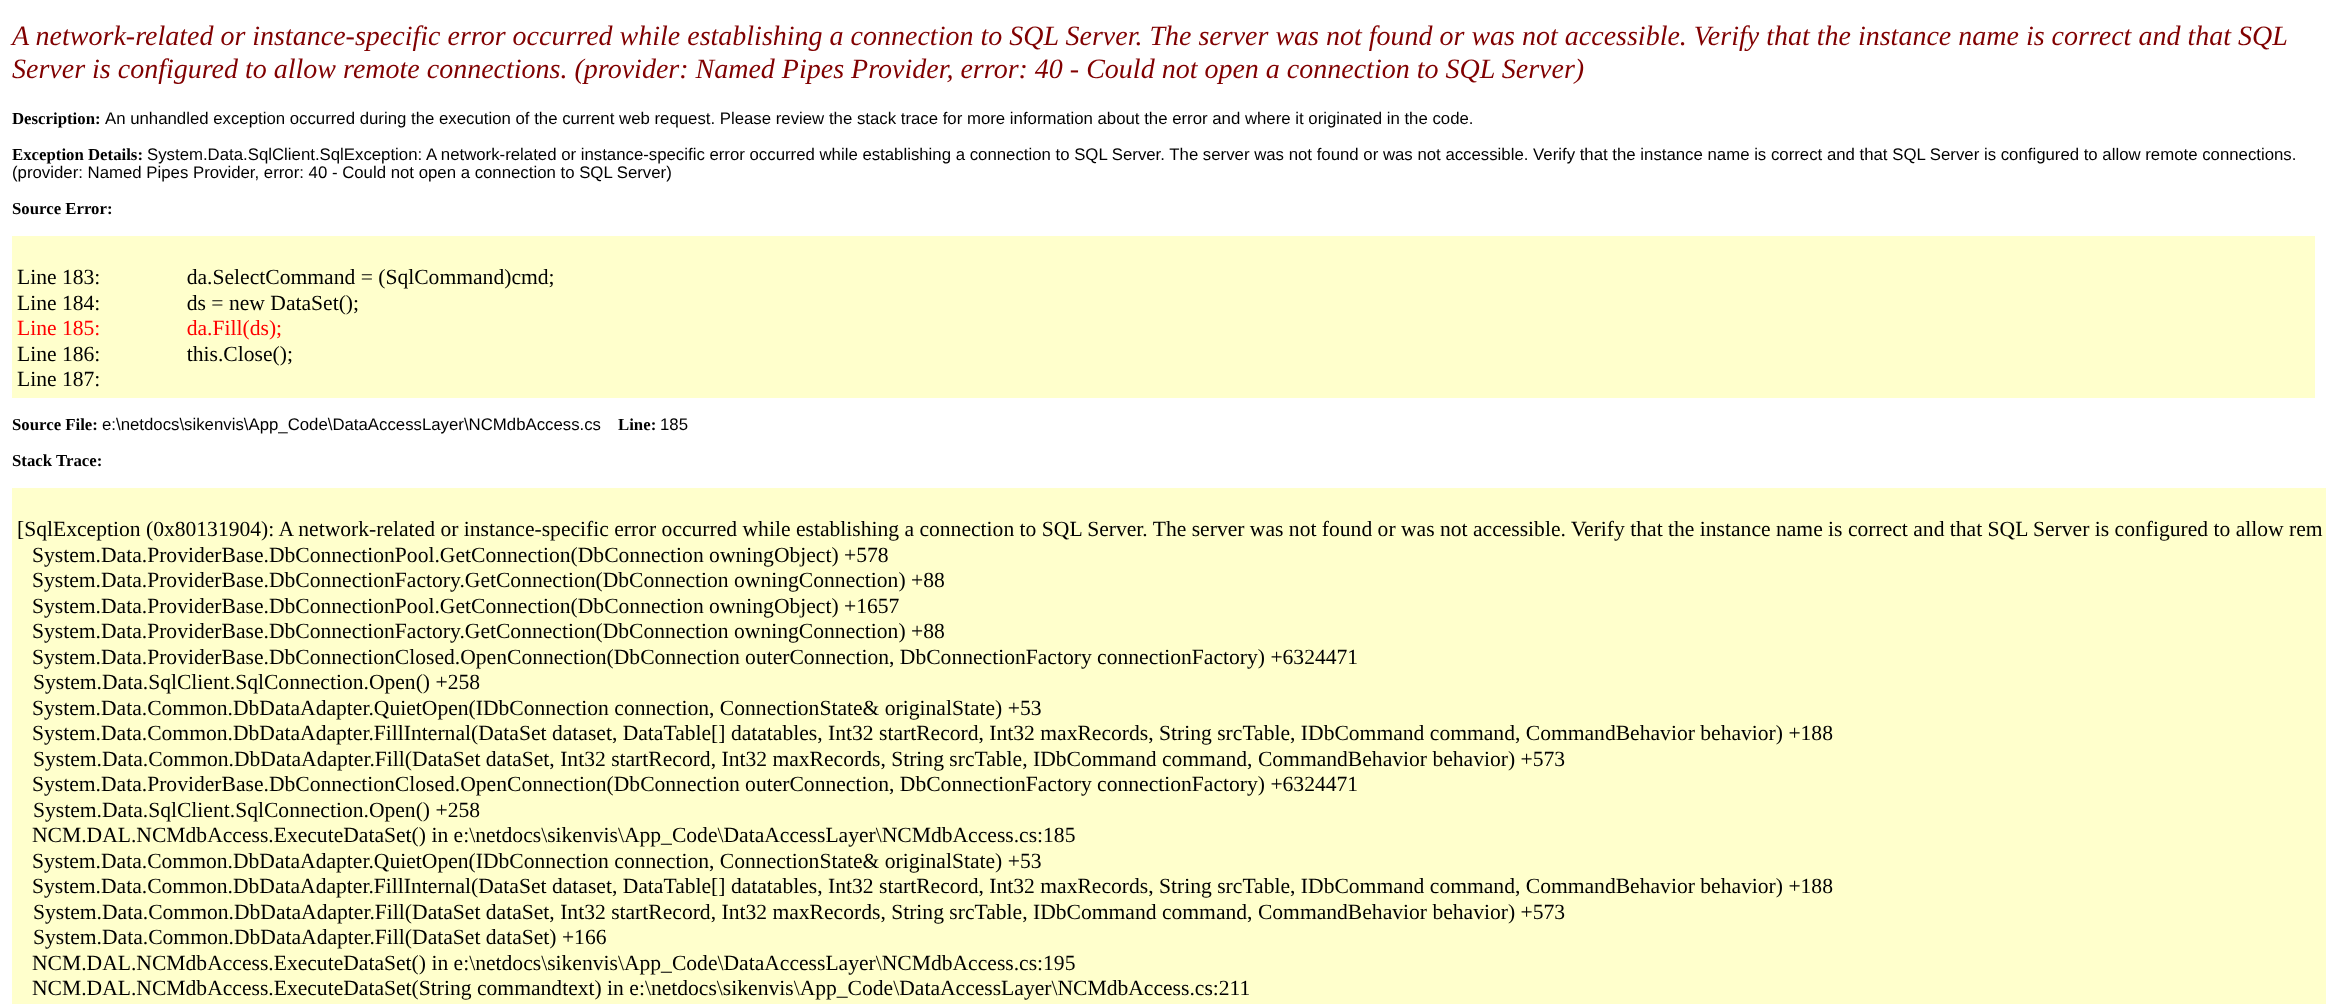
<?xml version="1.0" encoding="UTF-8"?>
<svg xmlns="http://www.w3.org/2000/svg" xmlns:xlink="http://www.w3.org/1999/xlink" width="2326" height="1004">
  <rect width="100%" height="100%" fill="#ffffff" />
  <rect x="12" y="236" width="2303" height="162" fill="#ffffcc" />
  <rect x="12" y="488" width="2314" height="516" fill="#ffffcc" />
  <text x="12" y="45" style="font-family: Liberation Serif; font-size: 28px; font-style: italic; fill: #800000">A network-related or instance-specific error occurred while establishing a connection to SQL Server. The server was not found or was not accessible. Verify that the instance name is correct and that SQL</text>
  <text x="12" y="78" style="font-family: Liberation Serif; font-size: 28px; font-style: italic; fill: #800000">Server is configured to allow remote connections. (provider: Named Pipes Provider, error: 40 - Could not open a connection to SQL Server)</text>
  <text x="12" y="124" style="font-family: Liberation Serif; font-size: 16.8px; font-weight: bold; fill: #000000">Description:</text>
  <text x="105" y="124" style="font-family: Liberation Sans; font-size: 16.8px; fill: #000000">An unhandled exception occurred during the execution of the current web request. Please review the stack trace for more information about the error and where it originated in the code.</text>
  <text x="12" y="160" style="font-family: Liberation Serif; font-size: 16.8px; font-weight: bold; fill: #000000">Exception Details:</text>
  <text x="147" y="160" style="font-family: Liberation Sans; font-size: 16.8px; fill: #000000">System.Data.SqlClient.SqlException: A network-related or instance-specific error occurred while establishing a connection to SQL Server. The server was not found or was not accessible. Verify that the instance name is correct and that SQL Server is configured to allow remote connections.</text>
  <text x="12" y="178" style="font-family: Liberation Sans; font-size: 16.8px; fill: #000000">(provider: Named Pipes Provider, error: 40 - Could not open a connection to SQL Server)</text>
  <text x="12" y="214" style="font-family: Liberation Serif; font-size: 16.8px; font-weight: bold; fill: #000000">Source Error:</text>
  <text x="17" y="284" style="font-family: Liberation Serif; font-size: 21.6px; fill: #000000" xml:space="preserve">Line 183:                da.SelectCommand = (SqlCommand)cmd;</text>
  <text x="17" y="310" style="font-family: Liberation Serif; font-size: 21.6px; fill: #000000" xml:space="preserve">Line 184:                ds = new DataSet();</text>
  <text x="17" y="335" style="font-family: Liberation Serif; font-size: 21.6px; fill: #ff0000" xml:space="preserve">Line 185:                da.Fill(ds);</text>
  <text x="17" y="361" style="font-family: Liberation Serif; font-size: 21.6px; fill: #000000" xml:space="preserve">Line 186:                this.Close();</text>
  <text x="17" y="386" style="font-family: Liberation Serif; font-size: 21.6px; fill: #000000">Line 187:</text>
  <text x="12" y="430" style="font-family: Liberation Serif; font-size: 16.8px; font-weight: bold; fill: #000000">Source File:</text>
  <text x="102" y="430" style="font-family: Liberation Sans; font-size: 16.8px; fill: #000000">e:\netdocs\sikenvis\App_Code\DataAccessLayer\NCMdbAccess.cs</text>
  <text x="618" y="430" style="font-family: Liberation Serif; font-size: 16.8px; font-weight: bold; fill: #000000">Line:</text>
  <text x="660" y="430" style="font-family: Liberation Sans; font-size: 16.8px; fill: #000000">185</text>
  <text x="12" y="466" style="font-family: Liberation Serif; font-size: 16.8px; font-weight: bold; fill: #000000">Stack Trace:</text>
  <text x="17" y="536" style="font-family: Liberation Serif; font-size: 21.6px; fill: #000000">[SqlException (0x80131904): A network-related or instance-specific error occurred while establishing a connection to SQL Server. The server was not found or was not accessible. Verify that the instance name is correct and that SQL Server is configured to allow rem</text>
  <text x="32" y="562" style="font-family: Liberation Serif; font-size: 21.6px; fill: #000000">System.Data.ProviderBase.DbConnectionPool.GetConnection(DbConnection owningObject) +578</text>
  <text x="32" y="587" style="font-family: Liberation Serif; font-size: 21.6px; fill: #000000">System.Data.ProviderBase.DbConnectionFactory.GetConnection(DbConnection owningConnection) +88</text>
  <text x="32" y="613" style="font-family: Liberation Serif; font-size: 21.6px; fill: #000000">System.Data.ProviderBase.DbConnectionPool.GetConnection(DbConnection owningObject) +1657</text>
  <text x="32" y="638" style="font-family: Liberation Serif; font-size: 21.6px; fill: #000000">System.Data.ProviderBase.DbConnectionFactory.GetConnection(DbConnection owningConnection) +88</text>
  <text x="32" y="664" style="font-family: Liberation Serif; font-size: 21.6px; fill: #000000">System.Data.ProviderBase.DbConnectionClosed.OpenConnection(DbConnection outerConnection, DbConnectionFactory connectionFactory) +6324471</text>
  <text x="33" y="689" style="font-family: Liberation Serif; font-size: 21.6px; fill: #000000">System.Data.SqlClient.SqlConnection.Open() +258</text>
  <text x="32" y="715" style="font-family: Liberation Serif; font-size: 21.6px; fill: #000000">System.Data.Common.DbDataAdapter.QuietOpen(IDbConnection connection, ConnectionState&amp; originalState) +53</text>
  <text x="32" y="740" style="font-family: Liberation Serif; font-size: 21.6px; fill: #000000">System.Data.Common.DbDataAdapter.FillInternal(DataSet dataset, DataTable[] datatables, Int32 startRecord, Int32 maxRecords, String srcTable, IDbCommand command, CommandBehavior behavior) +188</text>
  <text x="33" y="766" style="font-family: Liberation Serif; font-size: 21.6px; fill: #000000">System.Data.Common.DbDataAdapter.Fill(DataSet dataSet, Int32 startRecord, Int32 maxRecords, String srcTable, IDbCommand command, CommandBehavior behavior) +573</text>
  <text x="32" y="791" style="font-family: Liberation Serif; font-size: 21.6px; fill: #000000">System.Data.ProviderBase.DbConnectionClosed.OpenConnection(DbConnection outerConnection, DbConnectionFactory connectionFactory) +6324471</text>
  <text x="33" y="817" style="font-family: Liberation Serif; font-size: 21.6px; fill: #000000">System.Data.SqlClient.SqlConnection.Open() +258</text>
  <text x="32" y="842" style="font-family: Liberation Serif; font-size: 21.6px; fill: #000000">NCM.DAL.NCMdbAccess.ExecuteDataSet() in e:\netdocs\sikenvis\App_Code\DataAccessLayer\NCMdbAccess.cs:185</text>
  <text x="32" y="868" style="font-family: Liberation Serif; font-size: 21.6px; fill: #000000">System.Data.Common.DbDataAdapter.QuietOpen(IDbConnection connection, ConnectionState&amp; originalState) +53</text>
  <text x="32" y="893" style="font-family: Liberation Serif; font-size: 21.6px; fill: #000000">System.Data.Common.DbDataAdapter.FillInternal(DataSet dataset, DataTable[] datatables, Int32 startRecord, Int32 maxRecords, String srcTable, IDbCommand command, CommandBehavior behavior) +188</text>
  <text x="33" y="919" style="font-family: Liberation Serif; font-size: 21.6px; fill: #000000">System.Data.Common.DbDataAdapter.Fill(DataSet dataSet, Int32 startRecord, Int32 maxRecords, String srcTable, IDbCommand command, CommandBehavior behavior) +573</text>
  <text x="33" y="944" style="font-family: Liberation Serif; font-size: 21.6px; fill: #000000">System.Data.Common.DbDataAdapter.Fill(DataSet dataSet) +166</text>
  <text x="32" y="970" style="font-family: Liberation Serif; font-size: 21.6px; fill: #000000">NCM.DAL.NCMdbAccess.ExecuteDataSet() in e:\netdocs\sikenvis\App_Code\DataAccessLayer\NCMdbAccess.cs:195</text>
  <text x="32" y="995" style="font-family: Liberation Serif; font-size: 21.6px; fill: #000000">NCM.DAL.NCMdbAccess.ExecuteDataSet(String commandtext) in e:\netdocs\sikenvis\App_Code\DataAccessLayer\NCMdbAccess.cs:211</text>
</svg>
